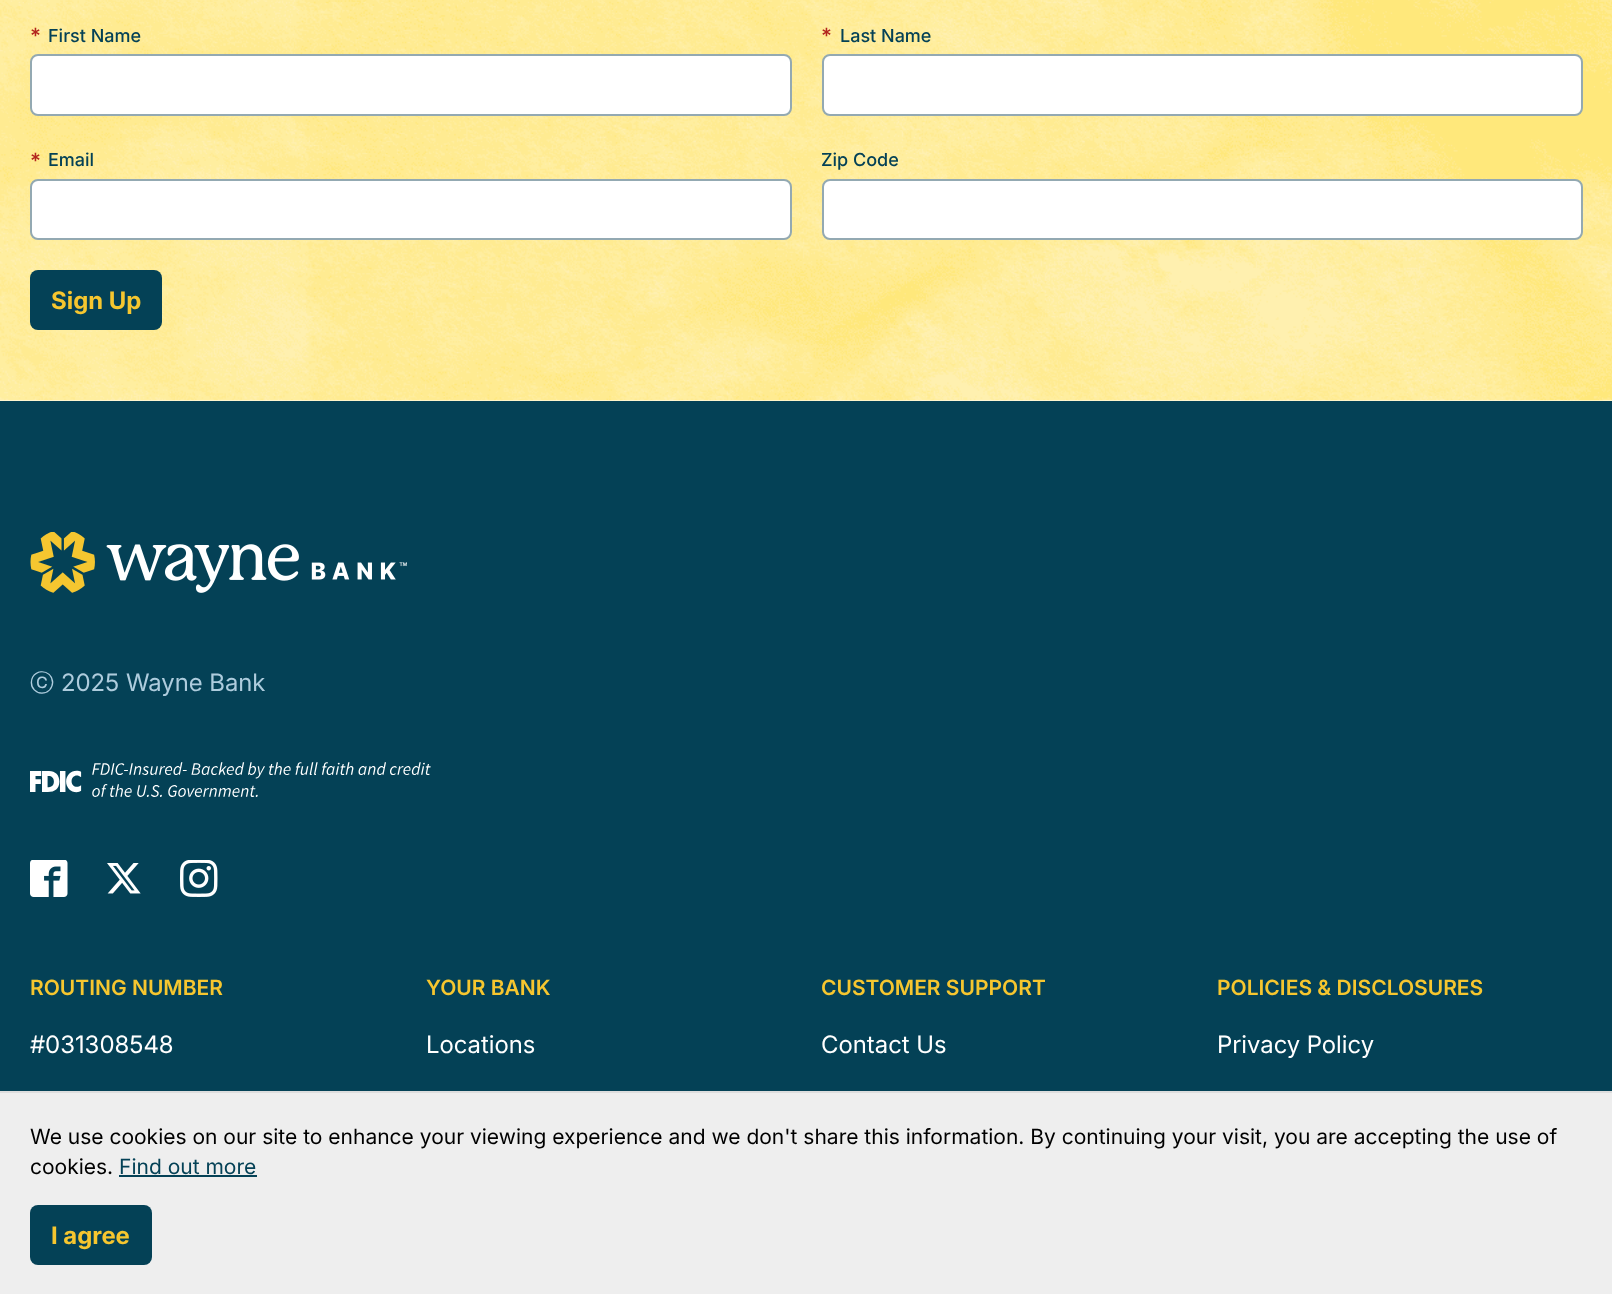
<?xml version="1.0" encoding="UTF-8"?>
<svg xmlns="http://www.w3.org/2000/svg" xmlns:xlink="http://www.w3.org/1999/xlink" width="1612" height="1294">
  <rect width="100%" height="100%" fill="#ffffff" />
  <image x="0" y="0" width="1612" height="401" xlink:href="image1.png" />
  <rect x="31" y="55" width="760" height="60" rx="7" fill="#ffffff" stroke="#93a9b2" stroke-width="2" />
  <rect x="823" y="55" width="759" height="60" rx="7" fill="#ffffff" stroke="#93a9b2" stroke-width="2" />
  <rect x="31" y="180" width="760" height="59" rx="7" fill="#ffffff" stroke="#93a9b2" stroke-width="2" />
  <rect x="823" y="180" width="759" height="59" rx="7" fill="#ffffff" stroke="#93a9b2" stroke-width="2" />
  <rect x="30" y="270" width="132" height="60" rx="8" fill="#044156" />
  <rect y="401" width="1612" height="690" fill="#044156" />
  <image x="30" y="532" width="377" height="61" xlink:href="image2.png" />
  <image x="30" y="762" width="401" height="35" xlink:href="image3.png" />
  <image x="30" y="860" width="38" height="37" xlink:href="image4.png" />
  <image x="107" y="863" width="34" height="31" xlink:href="image5.png" />
  <image x="180" y="860" width="38" height="37" xlink:href="image6.png" />
  <rect y="1093" width="1612" height="201" fill="#eeeeee" />
  <rect y="1091" width="1612" height="2" fill="#dddddd" />
  <rect x="119" y="1175" width="138" height="2" fill="#044156" />
  <rect x="30" y="1205" width="122" height="60" rx="8" fill="#044156" />
  <text x="30" y="43" style="font-family: Inter; font-size: 21px; font-weight: 500; fill: #b3261e">*</text>
  <text x="48" y="42" style="font-family: Inter; font-size: 18px; font-weight: 500; fill: #044156">First Name</text>
  <text x="821" y="43" style="font-family: Inter; font-size: 21px; font-weight: 500; fill: #b3261e">*</text>
  <text x="840" y="42" style="font-family: Inter; font-size: 18px; font-weight: 500; fill: #044156">Last Name</text>
  <text x="30" y="168" style="font-family: Inter; font-size: 21px; font-weight: 500; fill: #b3261e">*</text>
  <text x="48" y="166" style="font-family: Inter; font-size: 18px; font-weight: 500; fill: #044156">Email</text>
  <text x="821" y="166" style="font-family: Inter; font-size: 18px; font-weight: 500; fill: #044156">Zip Code</text>
  <text x="51" y="309" style="font-family: Inter; font-size: 24px; font-weight: bold; fill: #f6c62f">Sign Up</text>
  <text x="30" y="691" style="font-family: WenQuanYi Zen Hei; font-size: 24px; font-weight: 500; fill: #aeccdd">ⓒ</text>
  <text x="61" y="691" style="font-family: Inter; font-size: 24px; fill: #aeccdd">2025 Wayne Bank</text>
  <text x="30" y="995" style="font-family: Inter; font-size: 21px; font-weight: 600; fill: #f6c62f">ROUTING NUMBER</text>
  <text x="30" y="1053" style="font-family: Inter; font-size: 24px; fill: #ffffff">#031308548</text>
  <text x="426" y="995" style="font-family: Inter; font-size: 21px; font-weight: 600; fill: #f6c62f">YOUR BANK</text>
  <text x="426" y="1053" style="font-family: Inter; font-size: 24px; fill: #ffffff">Locations</text>
  <text x="821" y="995" style="font-family: Inter; font-size: 21px; font-weight: 600; fill: #f6c62f">CUSTOMER SUPPORT</text>
  <text x="821" y="1053" style="font-family: Inter; font-size: 24px; fill: #ffffff">Contact Us</text>
  <text x="1217" y="995" style="font-family: Inter; font-size: 21px; font-weight: 600; fill: #f6c62f">POLICIES &amp; DISCLOSURES</text>
  <text x="1217" y="1053" style="font-family: Inter; font-size: 24px; fill: #ffffff">Privacy Policy</text>
  <text x="30" y="1144" style="font-family: 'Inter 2'; font-size: 21px; fill: #000000">We use cookies on our site to enhance your viewing experience and we don't share this information. By continuing your visit, you are accepting the use of</text>
  <text x="30" y="1174" style="font-family: 'Inter 2'; font-size: 21px; fill: #000000">cookies.</text>
  <text x="119" y="1174" style="font-family: 'Inter 2'; font-size: 21px; fill: #044156">Find out more</text>
  <text x="51" y="1244" style="font-family: Inter; font-size: 24px; font-weight: bold; fill: #f6c62f">I agree</text>
</svg>
